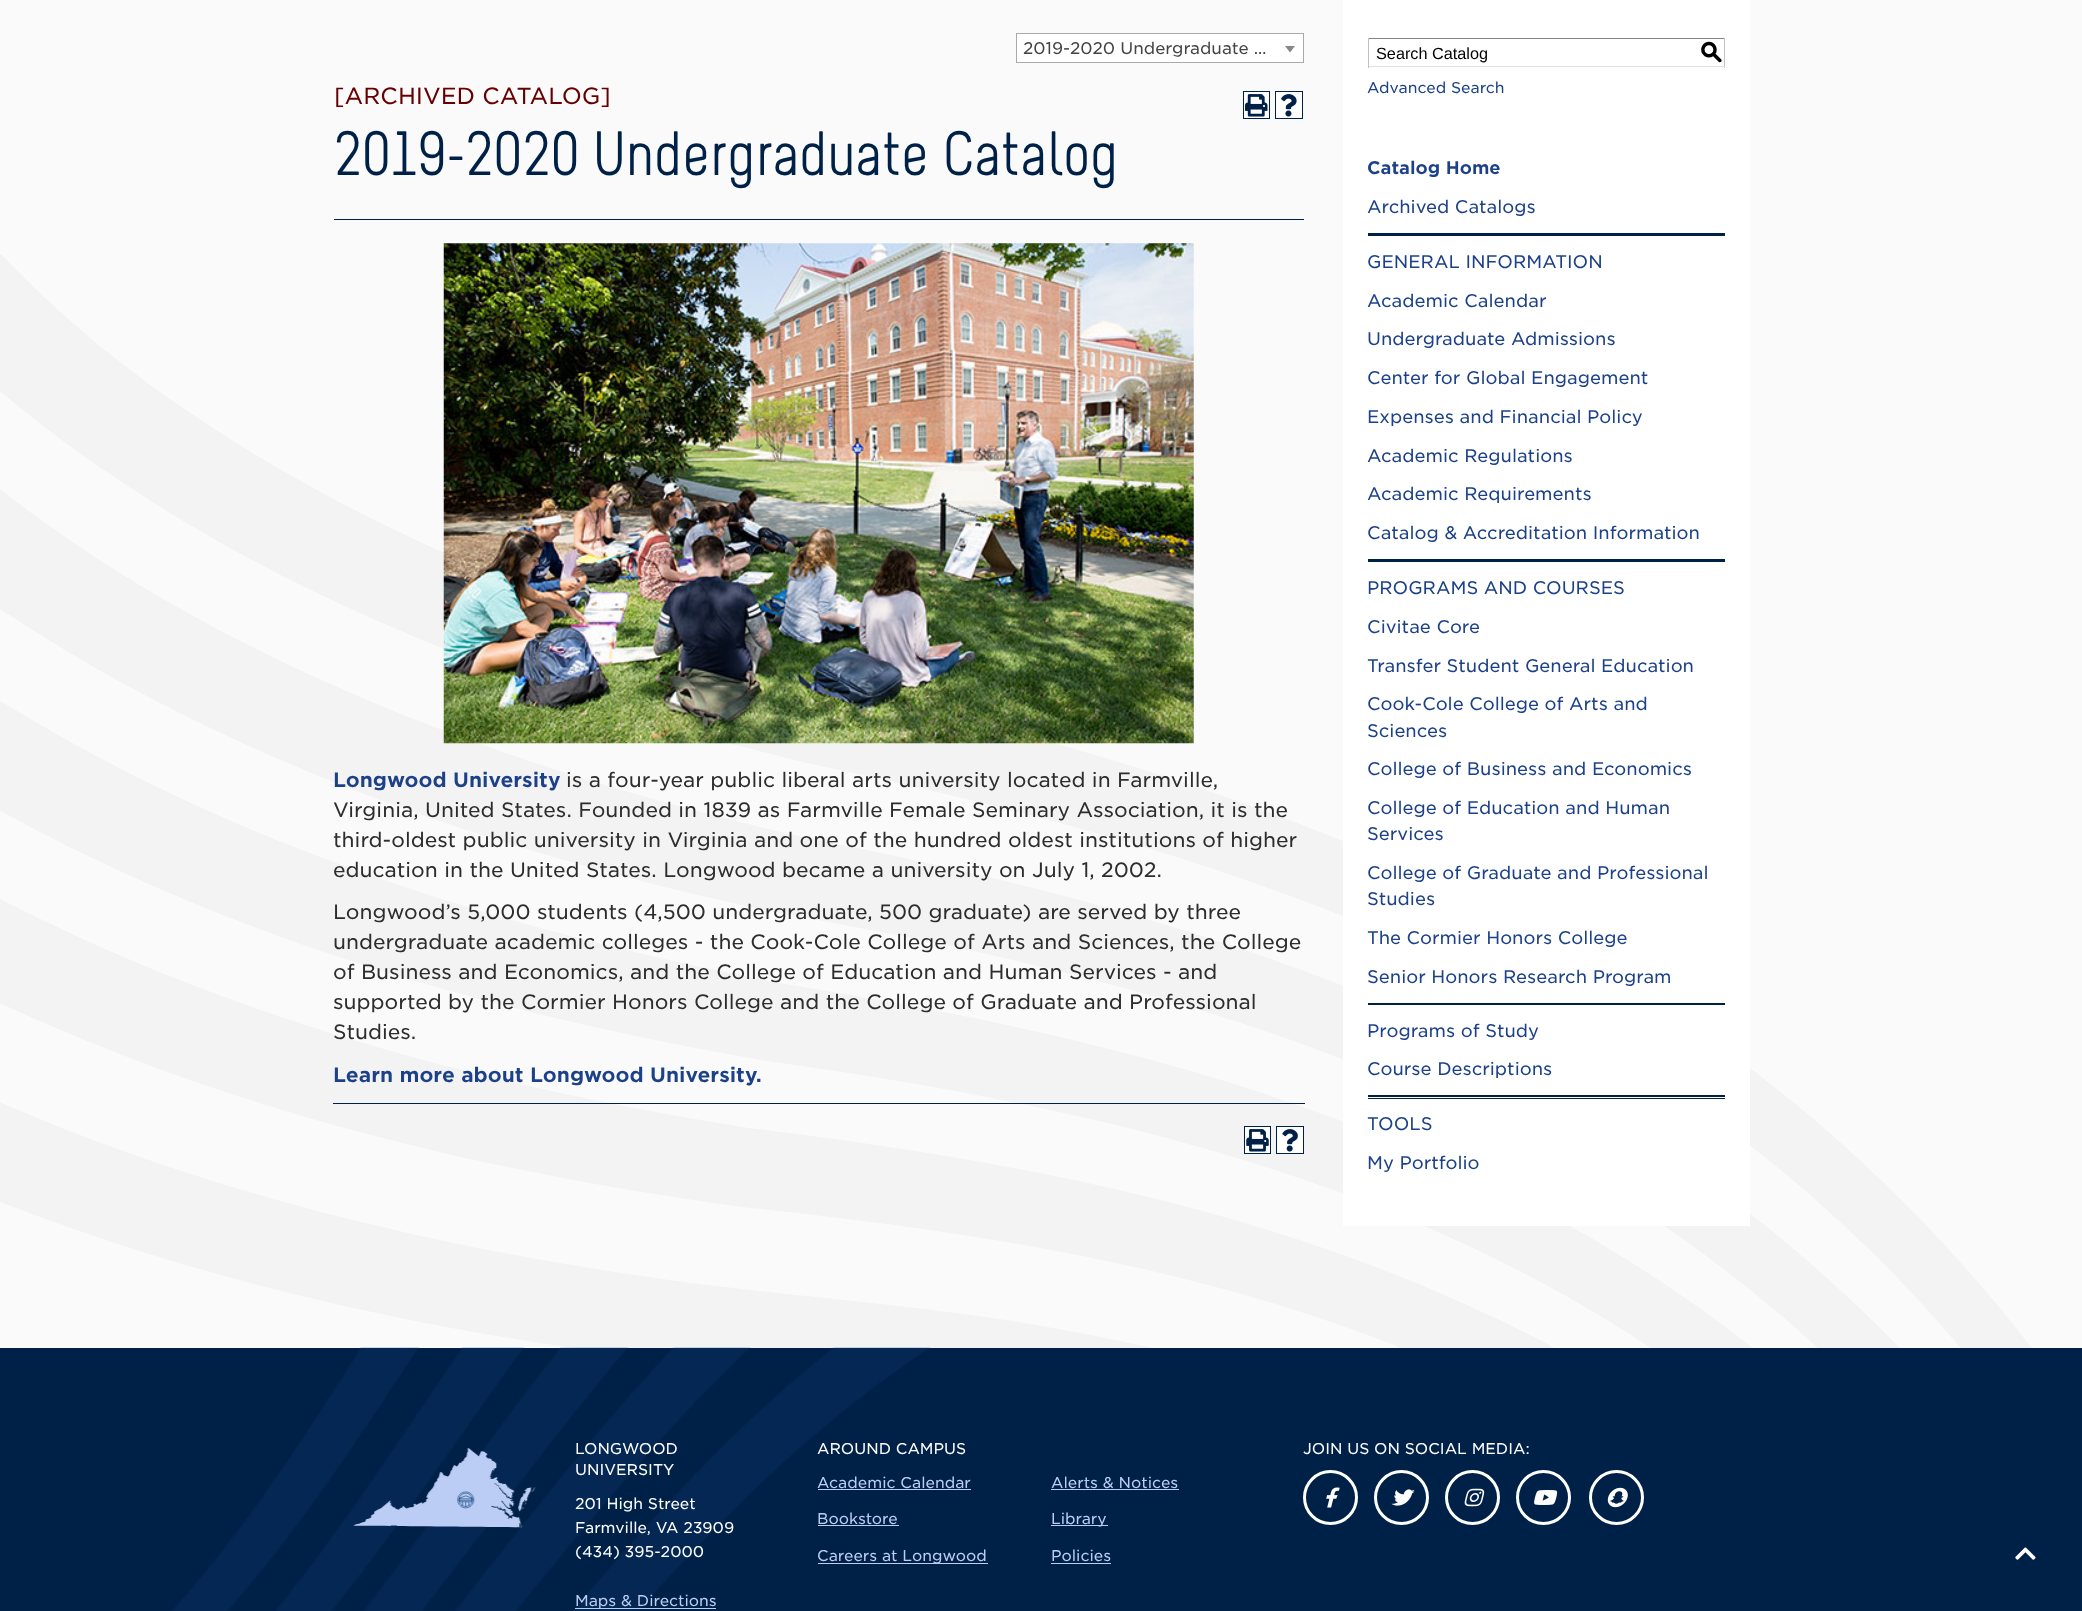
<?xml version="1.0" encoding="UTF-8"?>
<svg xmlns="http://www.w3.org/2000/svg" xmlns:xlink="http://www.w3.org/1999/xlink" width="2082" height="1611">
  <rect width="100%" height="100%" fill="#fafafa" />
  <image x="0" y="254" width="2032" height="1094" xlink:href="image1.png" />
  <rect x="1243.5" y="91.5" width="26" height="27" fill="#ffffff" stroke="#002147" />
  <image x="1245" y="94" width="23" height="23" xlink:href="image2.png" />
  <rect x="1275.5" y="91.5" width="27" height="27" fill="#ffffff" stroke="#002147" />
  <image x="1281" y="94" width="16" height="23" xlink:href="image3.png" />
  <rect x="334" y="219" width="970" height="1" fill="#002147" />
  <image x="443" y="243" width="751" height="501" xlink:href="image4.png" />
  <rect x="333" y="1103" width="972" height="1" fill="#002147" />
  <rect x="1244.5" y="1126.5" width="26" height="27" fill="#ffffff" stroke="#002147" />
  <image x="1246" y="1129" width="23" height="23" xlink:href="image5.png" />
  <rect x="1276.5" y="1126.5" width="27" height="27" fill="#ffffff" stroke="#002147" />
  <image x="1282" y="1129" width="16" height="23" xlink:href="image6.png" />
  <rect x="1343" width="407" height="1226" fill="#ffffff" />
  <rect x="1368" y="38" width="357" height="1" fill="#848484" />
  <rect x="1724" y="38" width="1" height="30" fill="#c1c1c1" />
  <rect x="1368" y="66" width="357" height="1" fill="#e1e1e1" />
  <rect x="1368" y="38" width="1" height="30" fill="#c1c1c1" />
  <rect x="1368" y="233" width="357" height="3" fill="#002147" />
  <rect x="1368" y="559" width="357" height="3" fill="#002147" />
  <rect x="1368" y="1003" width="357" height="2" fill="#002147" />
  <rect x="1368" y="1095" width="357" height="2" fill="#002147" />
  <rect x="1368" y="1098" width="357" height="1" fill="#002147" />
  <rect x="1016.5" y="33.5" width="287" height="29" fill="#ffffff" stroke="#aaaaaa" />
  <path d="M 1285 46 h 10 l -5 6.5 z" fill="#888888" />
  <rect y="1348" width="2082" height="263" fill="#002147" />
  <image x="171" y="1347" width="760" height="264" xlink:href="image7.png" />
  <image x="353" y="1448" width="183" height="80" xlink:href="image8.png" />
  <rect x="575" y="1608" width="141" height="1" fill="#bbcdf4" />
  <rect x="818" y="1489" width="153" height="1" fill="#bbcdf4" />
  <rect x="1051" y="1489" width="128" height="1" fill="#bbcdf4" />
  <rect x="818" y="1525" width="81" height="1" fill="#bbcdf4" />
  <rect x="1051" y="1525" width="57" height="1" fill="#bbcdf4" />
  <rect x="818" y="1563" width="170" height="1" fill="#bbcdf4" />
  <rect x="1051" y="1563" width="60" height="1" fill="#bbcdf4" />
  <circle cx="1330.5" cy="1497.5" r="26" fill="none" stroke="#ffffff" stroke-width="3" />
  <image x="1326" y="1487" width="14" height="21" xlink:href="image9.png" />
  <circle cx="1401.5" cy="1497.5" r="26" fill="none" stroke="#ffffff" stroke-width="3" />
  <image x="1391" y="1489" width="24" height="17" xlink:href="image10.png" />
  <circle cx="1472.5" cy="1497.5" r="26" fill="none" stroke="#ffffff" stroke-width="3" />
  <image x="1464" y="1488" width="21" height="19" xlink:href="image11.png" />
  <circle cx="1543.5" cy="1497.5" r="26" fill="none" stroke="#ffffff" stroke-width="3" />
  <image x="1534" y="1490" width="24" height="15" xlink:href="image12.png" />
  <circle cx="1616.5" cy="1497.5" r="26" fill="none" stroke="#ffffff" stroke-width="3" />
  <image x="1607" y="1487" width="21" height="21" xlink:href="image13.png" />
  <image x="2015" y="1547" width="21" height="13" xlink:href="image14.png" />
  <text x="334" y="104" style="font-family: 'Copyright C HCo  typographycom'; font-size: 22.5px; font-weight: 300; fill: #660000">[ARCHIVED CATALOG]</text>
  <text x="334" y="175" style="font-family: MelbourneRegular; font-size: 62.5px; fill: #002147">2019-2020 Undergraduate Catalog</text>
  <text x="333" y="787" style="font-family: 'Copyright C HCo  typographycom'; font-size: 20px; fill: #1c4188">Longwood University</text>
  <text x="566" y="787" style="font-family: 'Copyright C HCo  typographycom'; font-size: 20px; font-weight: 300; fill: #2d2d2d">is a four-year public liberal arts university located in Farmville,</text>
  <text x="333" y="817" style="font-family: 'Copyright C HCo  typographycom'; font-size: 20px; font-weight: 300; fill: #2d2d2d">Virginia, United States. Founded in 1839 as Farmville Female Seminary Association, it is the</text>
  <text x="333" y="847" style="font-family: 'Copyright C HCo  typographycom'; font-size: 20px; font-weight: 300; fill: #2d2d2d">third-oldest public university in Virginia and one of the hundred oldest institutions of higher</text>
  <text x="333" y="877" style="font-family: 'Copyright C HCo  typographycom'; font-size: 20px; font-weight: 300; fill: #2d2d2d">education in the United States. Longwood became a university on July 1, 2002.</text>
  <text x="333" y="919" style="font-family: 'Copyright C HCo  typographycom'; font-size: 20px; font-weight: 300; fill: #2d2d2d">Longwood’s 5,000 students (4,500 undergraduate, 500 graduate) are served by three</text>
  <text x="333" y="949" style="font-family: 'Copyright C HCo  typographycom'; font-size: 20px; font-weight: 300; fill: #2d2d2d">undergraduate academic colleges - the Cook-Cole College of Arts and Sciences, the College</text>
  <text x="333" y="979" style="font-family: 'Copyright C HCo  typographycom'; font-size: 20px; font-weight: 300; fill: #2d2d2d">of Business and Economics, and the College of Education and Human Services - and</text>
  <text x="333" y="1009" style="font-family: 'Copyright C HCo  typographycom'; font-size: 20px; font-weight: 300; fill: #2d2d2d">supported by the Cormier Honors College and the College of Graduate and Professional</text>
  <text x="333" y="1039" style="font-family: 'Copyright C HCo  typographycom'; font-size: 20px; font-weight: 300; fill: #2d2d2d">Studies.</text>
  <text x="333" y="1082" style="font-family: 'Copyright C HCo  typographycom'; font-size: 20px; fill: #1c4188">Learn more about Longwood University.</text>
  <text x="1376" y="59" style="font-family: Liberation Sans; font-size: 16.25px; fill: #000000">Search Catalog</text>
  <text x="1700" y="59" style="font-family: 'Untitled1'; font-size: 22.5px; font-weight: 500; fill: #000000">S</text>
  <text x="1367" y="93" style="font-family: 'Copyright C HCo  typographycom'; font-size: 15px; font-weight: 300; fill: #1c4188">Advanced Search</text>
  <text x="1367" y="174" style="font-family: 'Copyright C HCo  typographycom'; font-size: 17.5px; fill: #1c4188">Catalog Home</text>
  <text x="1367" y="213" style="font-family: 'Copyright C HCo  typographycom'; font-size: 17.5px; font-weight: 300; fill: #1c4188">Archived Catalogs</text>
  <text x="1367" y="268" style="font-family: 'Copyright C HCo  typographycom'; font-size: 17.5px; font-weight: 300; fill: #1c4188">GENERAL INFORMATION</text>
  <text x="1367" y="307" style="font-family: 'Copyright C HCo  typographycom'; font-size: 17.5px; font-weight: 300; fill: #1c4188">Academic Calendar</text>
  <text x="1367" y="345" style="font-family: 'Copyright C HCo  typographycom'; font-size: 17.5px; font-weight: 300; fill: #1c4188">Undergraduate Admissions</text>
  <text x="1367" y="384" style="font-family: 'Copyright C HCo  typographycom'; font-size: 17.5px; font-weight: 300; fill: #1c4188">Center for Global Engagement</text>
  <text x="1367" y="423" style="font-family: 'Copyright C HCo  typographycom'; font-size: 17.5px; font-weight: 300; fill: #1c4188">Expenses and Financial Policy</text>
  <text x="1367" y="462" style="font-family: 'Copyright C HCo  typographycom'; font-size: 17.5px; font-weight: 300; fill: #1c4188">Academic Regulations</text>
  <text x="1367" y="500" style="font-family: 'Copyright C HCo  typographycom'; font-size: 17.5px; font-weight: 300; fill: #1c4188">Academic Requirements</text>
  <text x="1367" y="539" style="font-family: 'Copyright C HCo  typographycom'; font-size: 17.5px; font-weight: 300; fill: #1c4188">Catalog &amp; Accreditation Information</text>
  <text x="1367" y="594" style="font-family: 'Copyright C HCo  typographycom'; font-size: 17.5px; font-weight: 300; fill: #1c4188">PROGRAMS AND COURSES</text>
  <text x="1367" y="633" style="font-family: 'Copyright C HCo  typographycom'; font-size: 17.5px; font-weight: 300; fill: #1c4188">Civitae Core</text>
  <text x="1367" y="672" style="font-family: 'Copyright C HCo  typographycom'; font-size: 17.5px; font-weight: 300; fill: #1c4188">Transfer Student General Education</text>
  <text x="1367" y="710" style="font-family: 'Copyright C HCo  typographycom'; font-size: 17.5px; font-weight: 300; fill: #1c4188">Cook-Cole College of Arts and</text>
  <text x="1367" y="737" style="font-family: 'Copyright C HCo  typographycom'; font-size: 17.5px; font-weight: 300; fill: #1c4188">Sciences</text>
  <text x="1367" y="775" style="font-family: 'Copyright C HCo  typographycom'; font-size: 17.5px; font-weight: 300; fill: #1c4188">College of Business and Economics</text>
  <text x="1367" y="814" style="font-family: 'Copyright C HCo  typographycom'; font-size: 17.5px; font-weight: 300; fill: #1c4188">College of Education and Human</text>
  <text x="1367" y="840" style="font-family: 'Copyright C HCo  typographycom'; font-size: 17.5px; font-weight: 300; fill: #1c4188">Services</text>
  <text x="1367" y="879" style="font-family: 'Copyright C HCo  typographycom'; font-size: 17.5px; font-weight: 300; fill: #1c4188">College of Graduate and Professional</text>
  <text x="1367" y="905" style="font-family: 'Copyright C HCo  typographycom'; font-size: 17.5px; font-weight: 300; fill: #1c4188">Studies</text>
  <text x="1367" y="944" style="font-family: 'Copyright C HCo  typographycom'; font-size: 17.5px; font-weight: 300; fill: #1c4188">The Cormier Honors College</text>
  <text x="1367" y="983" style="font-family: 'Copyright C HCo  typographycom'; font-size: 17.5px; font-weight: 300; fill: #1c4188">Senior Honors Research Program</text>
  <text x="1367" y="1037" style="font-family: 'Copyright C HCo  typographycom'; font-size: 17.5px; font-weight: 300; fill: #1c4188">Programs of Study</text>
  <text x="1367" y="1075" style="font-family: 'Copyright C HCo  typographycom'; font-size: 17.5px; font-weight: 300; fill: #1c4188">Course Descriptions</text>
  <text x="1367" y="1130" style="font-family: 'Copyright C HCo  typographycom'; font-size: 17.5px; font-weight: 300; fill: #1c4188">TOOLS</text>
  <text x="1367" y="1169" style="font-family: 'Copyright C HCo  typographycom'; font-size: 17.5px; font-weight: 300; fill: #1c4188">My Portfolio</text>
  <text x="1023" y="54" style="font-family: 'Copyright C HCo  typographycom'; font-size: 16.25px; font-weight: 300; fill: #444444">2019-2020 Undergraduate …</text>
  <text x="575" y="1454" style="font-family: 'Copyright C HCo  typographycom'; font-size: 15px; font-weight: 300; fill: #ffffff">LONGWOOD</text>
  <text x="575" y="1475" style="font-family: 'Copyright C HCo  typographycom'; font-size: 15px; font-weight: 300; fill: #ffffff">UNIVERSITY</text>
  <text x="575" y="1509" style="font-family: 'Copyright C HCo  typographycom'; font-size: 15px; font-weight: 300; fill: #ffffff">201 High Street</text>
  <text x="575" y="1533" style="font-family: 'Copyright C HCo  typographycom'; font-size: 15px; font-weight: 300; fill: #ffffff">Farmville, VA 23909</text>
  <text x="575" y="1557" style="font-family: 'Copyright C HCo  typographycom'; font-size: 15px; font-weight: 300; fill: #ffffff">(434) 395-2000</text>
  <text x="575" y="1606" style="font-family: 'Copyright C HCo  typographycom'; font-size: 15px; font-weight: 300; fill: #bbcdf4">Maps &amp; Directions</text>
  <text x="817" y="1454" style="font-family: 'Copyright C HCo  typographycom'; font-size: 15px; font-weight: 300; fill: #ffffff">AROUND CAMPUS</text>
  <text x="817" y="1488" style="font-family: 'Copyright C HCo  typographycom'; font-size: 15px; font-weight: 300; fill: #bbcdf4">Academic Calendar</text>
  <text x="1051" y="1488" style="font-family: 'Copyright C HCo  typographycom'; font-size: 15px; font-weight: 300; fill: #bbcdf4">Alerts &amp; Notices</text>
  <text x="817" y="1524" style="font-family: 'Copyright C HCo  typographycom'; font-size: 15px; font-weight: 300; fill: #bbcdf4">Bookstore</text>
  <text x="1051" y="1524" style="font-family: 'Copyright C HCo  typographycom'; font-size: 15px; font-weight: 300; fill: #bbcdf4">Library</text>
  <text x="817" y="1561" style="font-family: 'Copyright C HCo  typographycom'; font-size: 15px; font-weight: 300; fill: #bbcdf4">Careers at Longwood</text>
  <text x="1051" y="1561" style="font-family: 'Copyright C HCo  typographycom'; font-size: 15px; font-weight: 300; fill: #bbcdf4">Policies</text>
  <text x="1303" y="1454" style="font-family: 'Copyright C HCo  typographycom'; font-size: 15px; font-weight: 300; fill: #ffffff">JOIN US ON SOCIAL MEDIA:</text>
</svg>
